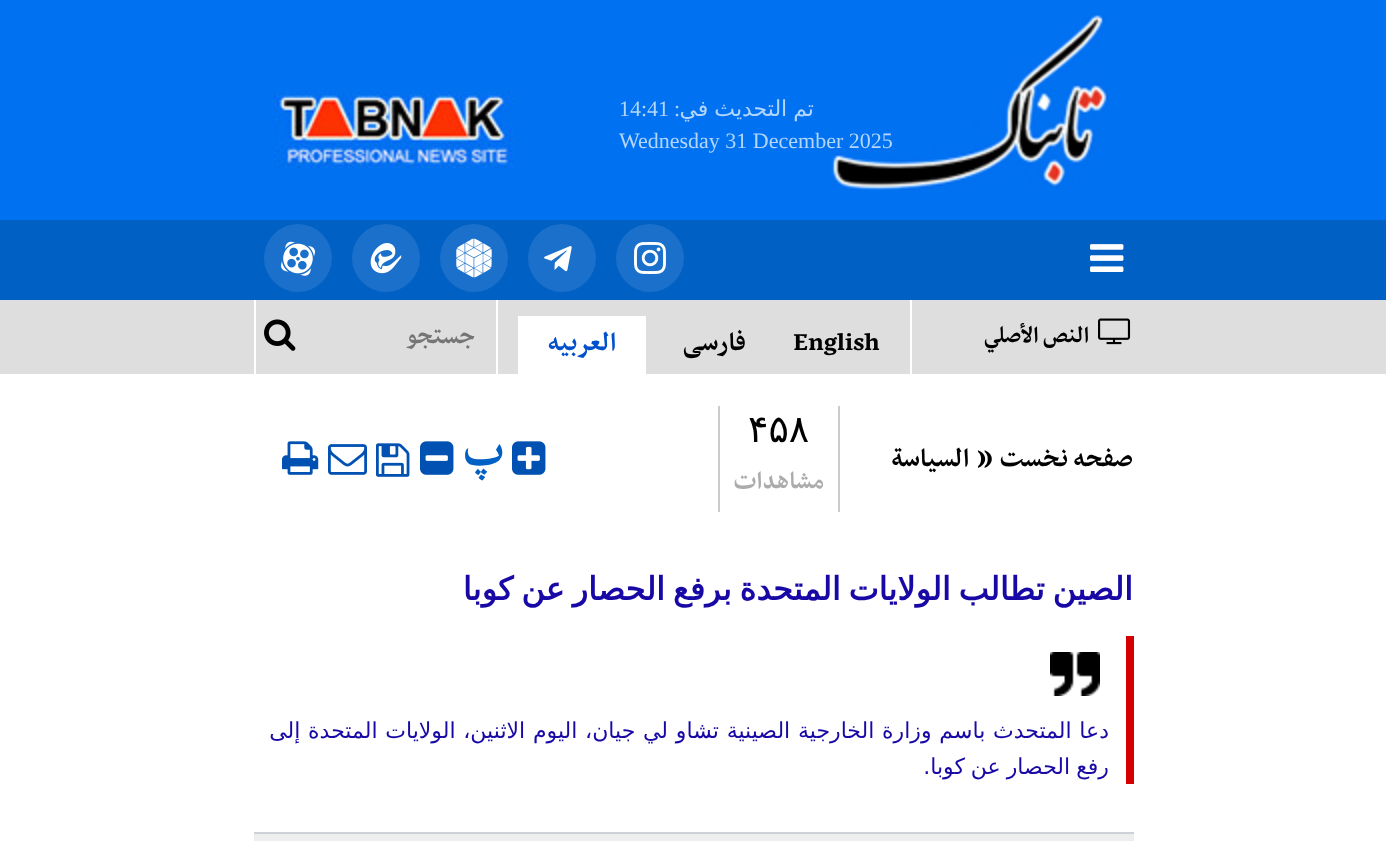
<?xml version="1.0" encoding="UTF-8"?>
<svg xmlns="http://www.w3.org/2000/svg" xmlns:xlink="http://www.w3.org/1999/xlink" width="1386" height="841">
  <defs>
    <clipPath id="clip1"><rect x="254" y="386" width="880" height="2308" /></clipPath>
  </defs>
  <rect width="100%" height="100%" fill="#ffffff" />
  <rect width="1386" height="220" fill="#0071f1" />
  <image x="831" y="14" width="277" height="176" xlink:href="image1.png" />
  <image x="274" y="92" width="240" height="76" xlink:href="image2.png" />
  <rect y="220" width="1386" height="80" fill="#0060c4" />
  <image x="1090" y="244" width="34" height="28" xlink:href="image3.png" />
  <circle cx="650" cy="258" r="34" fill="#1a70ca" />
  <image x="634" y="242" width="32" height="32" xlink:href="image4.png" />
  <circle cx="562" cy="258" r="34" fill="#1a70ca" />
  <image x="544" y="246" width="28" height="26" xlink:href="image5.png" />
  <circle cx="474" cy="258" r="34" fill="#1a70ca" />
  <image x="456" y="238" width="36" height="40" xlink:href="image6.png" />
  <circle cx="386" cy="258" r="34" fill="#1a70ca" />
  <image x="370" y="243" width="32" height="31" xlink:href="image7.png" />
  <circle cx="298" cy="258" r="34" fill="#1a70ca" />
  <image x="281" y="241" width="34" height="35" xlink:href="image8.png" />
  <rect y="300" width="1386" height="74" fill="#dedede" />
  <image x="1098" y="318" width="33" height="27" xlink:href="image9.png" />
  <rect x="910" y="300" width="2" height="74" fill="#ffffff" />
  <rect x="518" y="316" width="128" height="58" fill="#ffffff" />
  <rect x="496" y="300" width="2" height="74" fill="#ffffff" />
  <rect x="254" y="300" width="2" height="74" fill="#ffffff" />
  <image x="264" y="319" width="32" height="32" xlink:href="image10.png" />
  <rect x="838" y="406" width="2" height="106" fill="#cccccc" />
  <rect x="718" y="406" width="2" height="106" fill="#cccccc" />
  <image x="512" y="441" width="34" height="34" xlink:href="image11.png" />
  <image x="420" y="441" width="34" height="34" xlink:href="image12.png" />
  <image x="376" y="443" width="34" height="34" xlink:href="image13.png" />
  <image x="328" y="444" width="39" height="31" xlink:href="image14.png" />
  <image x="282" y="441" width="37" height="34" xlink:href="image15.png" />
  <rect x="1126" y="636" width="8" height="148" fill="#d40000" />
  <image x="1050" y="652" width="50" height="44" xlink:href="image16.png" />
  <rect x="254" y="834" width="880" height="7" fill="#eeeeee" />
  <rect x="254" y="832" width="880" height="2" fill="#ced2d8" />
  <text x="814" y="116" word-spacing="-1" style="font-family: DejaVu Sans; font-size: 22px; direction: rtl; fill: #b3d6fc">تم التحديث في</text>
  <text x="680" y="116" style="font-family: Liberation Serif; font-size: 22px; direction: rtl; fill: #b3d6fc">:</text>
  <text x="619" y="116" style="font-family: Liberation Serif; font-size: 22px; fill: #b3d6fc">14:41</text>
  <text x="619" y="148" style="font-family: Liberation Serif; font-size: 22px; fill: #b3d6fc">Wednesday 31 December 2025</text>
  <text x="1089" y="342" style="font-family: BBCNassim; font-size: 26px; font-weight: bold; direction: rtl; fill: #000000">النص الأصلي</text>
  <text x="793" y="350" style="font-family: BBCNassim; font-size: 30px; font-weight: bold; fill: #000000">English</text>
  <text x="746" y="350" style="font-family: BBCNassim; font-size: 30px; font-weight: bold; direction: rtl; fill: #000000">فارسی</text>
  <text x="616" y="350" style="font-family: BBCNassim; font-size: 30px; font-weight: bold; direction: rtl; fill: #0250cc">العربیه</text>
  <text x="475" y="343" style="font-family: BBCNassim; font-size: 28px; font-weight: bold; direction: rtl; fill: #757575">جستجو</text>
  <text x="1133" y="466" style="font-family: BBCNassim; font-size: 30px; font-weight: bold; direction: rtl; fill: #000000">صفحه نخست</text>
  <text x="976" y="466" style="font-family: BBCNassim; font-size: 36px; font-weight: bold; fill: #000000">»</text>
  <text x="969" y="466" style="font-family: BBCNassim; font-size: 30px; font-weight: bold; direction: rtl; fill: #000000">السیاسة</text>
  <text x="748" y="442" style="font-family: DejaVu Sans; font-size: 38px; fill: #000000">۴۵۸</text>
  <text x="824" y="488" style="font-family: BBCNassim; font-size: 28px; font-weight: bold; direction: rtl; fill: #acacac">مشاهدات</text>
  <text x="513" y="464" style="font-family: BBCNassim; font-size: 50px; font-weight: bold; direction: rtl; fill: #0060c4">‍ پ</text>
  <g clip-path="url(#clip1)">
    <text x="1133" y="600" word-spacing="-2.25" style="font-family: DejaVu Sans; font-size: 32px; font-weight: bold; direction: rtl; fill: #1809a6">الصين تطالب الولايات المتحدة برفع الحصار عن كوبا</text>
  </g>
  <text x="1109" y="738" word-spacing="0.75" style="font-family: DejaVu Sans; font-size: 22px; direction: rtl; fill: #1809a6">دعا المتحدث باسم وزارة الخارجية الصينية تشاو لي جيان، اليوم الاثنين، الولايات المتحدة إلى</text>
  <text x="1109" y="774" word-spacing="-1" style="font-family: DejaVu Sans; font-size: 22px; direction: rtl; fill: #1809a6">رفع الحصار عن كوبا.</text>
</svg>
